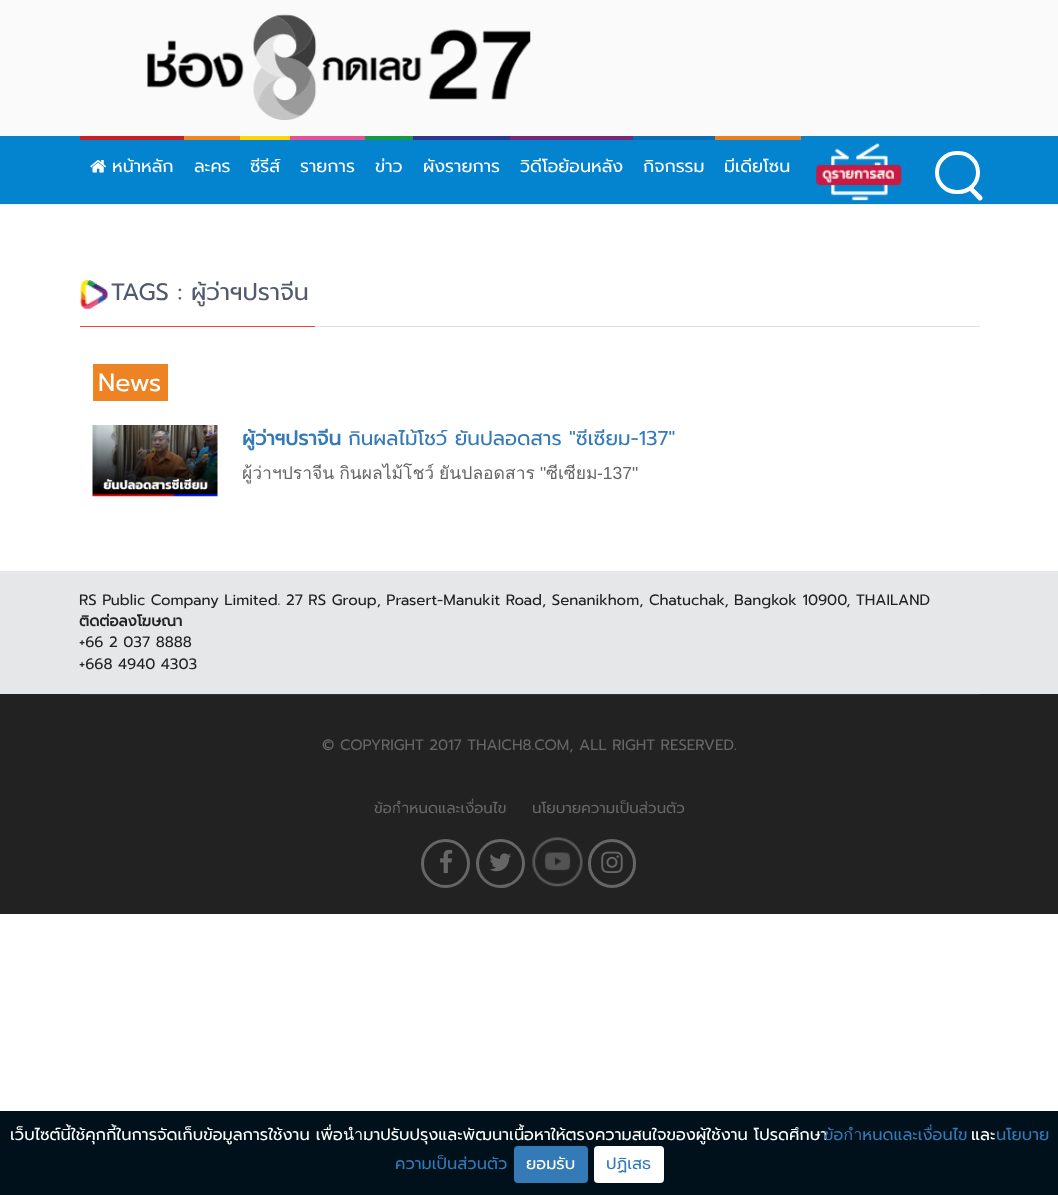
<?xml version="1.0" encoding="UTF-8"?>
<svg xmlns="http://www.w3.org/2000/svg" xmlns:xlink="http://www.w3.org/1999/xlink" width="1058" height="1195">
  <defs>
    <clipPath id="clip1"><rect x="243" y="425" width="725" height="29" /></clipPath>
  </defs>
  <rect width="100%" height="100%" fill="#ffffff" />
  <rect width="1058" height="136" fill="#fafafa" />
  <image x="147" y="14" width="384" height="106" xlink:href="image1.png" />
  <rect y="136" width="1058" height="68" fill="#0484cf" />
  <rect y="204" width="1058" height="1" fill="#f0f0f0" />
  <rect x="80" y="136" width="104" height="4" fill="#c81e25" />
  <image x="90" y="160" width="16" height="13" xlink:href="image2.png" />
  <rect x="184" y="136" width="56" height="4" fill="#f08521" />
  <rect x="240" y="136" width="50" height="4" fill="#ffd504" />
  <rect x="290" y="136" width="75" height="4" fill="#e65194" />
  <rect x="365" y="136" width="48" height="4" fill="#169847" />
  <rect x="413" y="136" width="97" height="4" fill="#2f368e" />
  <rect x="510" y="136" width="123" height="4" fill="#782879" />
  <rect x="633" y="136" width="82" height="4" fill="#086eb5" />
  <rect x="715" y="136" width="86" height="4" fill="#e97f23" />
  <image x="816" y="143" width="86" height="58" xlink:href="image3.png" />
  <rect x="937" y="153" width="41" height="39" rx="19.5" fill="none" stroke="#ffffff" stroke-width="4" />
  <path d="M 973 187.5 l 6 6 c 1.5 1 5.5 4.5 2.5 6.5 c -1 0.5 -1.5 0.5 -2.5 0.5 l -10 -10.5 c -1 -2.5 2 -4.5 4 -2.5 z" fill="#ffffff" />
  <rect x="315" y="326" width="665" height="1" fill="#e1e1e1" />
  <image x="80" y="280" width="28" height="29" xlink:href="image4.png" />
  <rect x="80" y="326" width="235" height="1" fill="#f44336" />
  <rect x="93" y="364" width="75" height="37" fill="#ed8322" />
  <image x="92" y="425" width="126" height="72" xlink:href="image5.png" />
  <rect y="571" width="1058" height="123" fill="#e6e7e9" />
  <rect y="694" width="1058" height="220" fill="#222222" />
  <rect x="80" y="694" width="900" height="1" fill="#333333" />
  <circle cx="445.5" cy="863.5" r="23" fill="none" stroke="#666666" stroke-width="3" />
  <image x="440" y="849" width="13" height="25" xlink:href="image6.png" />
  <circle cx="500.5" cy="863.5" r="23" fill="none" stroke="#666666" stroke-width="3" />
  <image x="489" y="853" width="22" height="19" xlink:href="image7.png" />
  <image x="532" y="837" width="51" height="50" xlink:href="image8.png" />
  <rect x="589.5" y="840.5" width="45" height="46" rx="22.5" fill="none" stroke="#666666" stroke-width="3" />
  <image x="601" y="851" width="22" height="22" xlink:href="image9.png" />
  <rect y="1111" width="1058" height="84" fill="#00111b" />
  <rect x="514" y="1146" width="74" height="37" rx="4" fill="#337ab7" />
  <rect x="594" y="1146" width="70" height="37" rx="4" fill="#ffffff" />
  <text x="112" y="172" style="font-family: Prompt; font-size: 17.5px; fill: #ffffff">หน้าหลัก</text>
  <text x="194" y="172" style="font-family: Prompt; font-size: 17.5px; fill: #ffffff">ละคร</text>
  <text x="250" y="172" style="font-family: Prompt; font-size: 17.5px; fill: #ffffff">ซีรีส์</text>
  <text x="300" y="172" style="font-family: Prompt; font-size: 17.5px; fill: #ffffff">รายการ</text>
  <text x="375" y="172" style="font-family: Prompt; font-size: 17.5px; fill: #ffffff">ข่าว</text>
  <text x="423" y="172" style="font-family: Prompt; font-size: 17.5px; fill: #ffffff">ผังรายการ</text>
  <text x="520" y="172" style="font-family: Prompt; font-size: 17.5px; fill: #ffffff">วิดีโอย้อนหลัง</text>
  <text x="643" y="172" style="font-family: Prompt; font-size: 17.5px; fill: #ffffff">กิจกรรม</text>
  <text x="724" y="172" style="font-family: Prompt; font-size: 17.5px; fill: #ffffff">มีเดียโซน</text>
  <text x="111" y="300" style="font-family: Prompt; font-size: 23.75px; fill: #525b6e">TAGS : ผู้ว่าฯปราจีน</text>
  <text x="98" y="391" style="font-family: Prompt; font-size: 25px; fill: #ffffff">News</text>
  <g clip-path="url(#clip1)">
    <text x="242" y="445" style="font-family: Prompt; font-size: 20px; font-weight: bold; fill: #337ab7">ผู้ว่าฯปราจีน</text>
  </g>
  <text x="348" y="445" style="font-family: Prompt; font-size: 20px; fill: #337ab7">กินผลไม้โชว์ ยันปลอดสาร "ซีเซียม-137"</text>
  <text x="242" y="479" word-spacing="-1" style="font-family: Loma; font-size: 17.5px; fill: #666666">ผู้ว่าฯปราจีน กินผลไม้โชว์ ยันปลอดสาร</text>
  <text x="540" y="479" style="font-family: Liberation Sans; font-size: 17.5px; fill: #666666">"</text>
  <text x="546" y="479" style="font-family: Loma; font-size: 17.5px; fill: #666666">ซีเซียม</text>
  <text x="597" y="479" style="font-family: Liberation Sans; font-size: 17.5px; fill: #666666">-137"</text>
  <text x="79" y="605" style="font-family: Prompt; font-size: 15px; fill: #222222">RS Public Company Limited. 27 RS Group, Prasert-Manukit Road, Senanikhom, Chatuchak, Bangkok 10900, THAILAND</text>
  <text x="79" y="626" style="font-family: Prompt; font-size: 15px; font-weight: bold; fill: #222222">ติดต่อลงโฆษณา</text>
  <text x="79" y="647" style="font-family: Prompt; font-size: 15px; fill: #222222">+66 2 037 8888</text>
  <text x="79" y="669" style="font-family: Prompt; font-size: 15px; fill: #222222">+668 4940 4303</text>
  <text x="322" y="750" style="font-family: Prompt; font-size: 15px; fill: #666666">© COPYRIGHT 2017 THAICH8.COM, ALL RIGHT RESERVED.</text>
  <text x="374" y="813" style="font-family: Prompt; font-size: 15px; fill: #666666">ข้อกำหนดและเงื่อนไข</text>
  <text x="532" y="813" style="font-family: Prompt; font-size: 15px; fill: #666666">นโยบายความเป็นส่วนตัว</text>
  <text x="10" y="1140" style="font-family: Prompt; font-size: 16.25px; fill: #ffffff">เว็บไซต์นี้ใช้คุกกี้ในการจัดเก็บข้อมูลการใช้งาน เพื่อนำมาปรับปรุงและพัฒนาเนื้อหาให้ตรงความสนใจของผู้ใช้งาน โปรดศึกษา</text>
  <text x="824" y="1140" style="font-family: Prompt; font-size: 16.25px; fill: #337ab7">ข้อกำหนดและเงื่อนไข</text>
  <text x="971" y="1140" style="font-family: Prompt; font-size: 16.25px; fill: #ffffff">และ</text>
  <text x="996" y="1140" style="font-family: Prompt; font-size: 16.25px; fill: #337ab7">นโยบาย</text>
  <text x="395" y="1169" style="font-family: Prompt; font-size: 16.25px; fill: #337ab7">ความเป็นส่วนตัว</text>
  <text x="526" y="1169" style="font-family: Prompt; font-size: 16.25px; fill: #ffffff">ยอมรับ</text>
  <text x="606" y="1169" style="font-family: Prompt; font-size: 16.25px; fill: #337ab7">ปฏิเสธ</text>
</svg>
